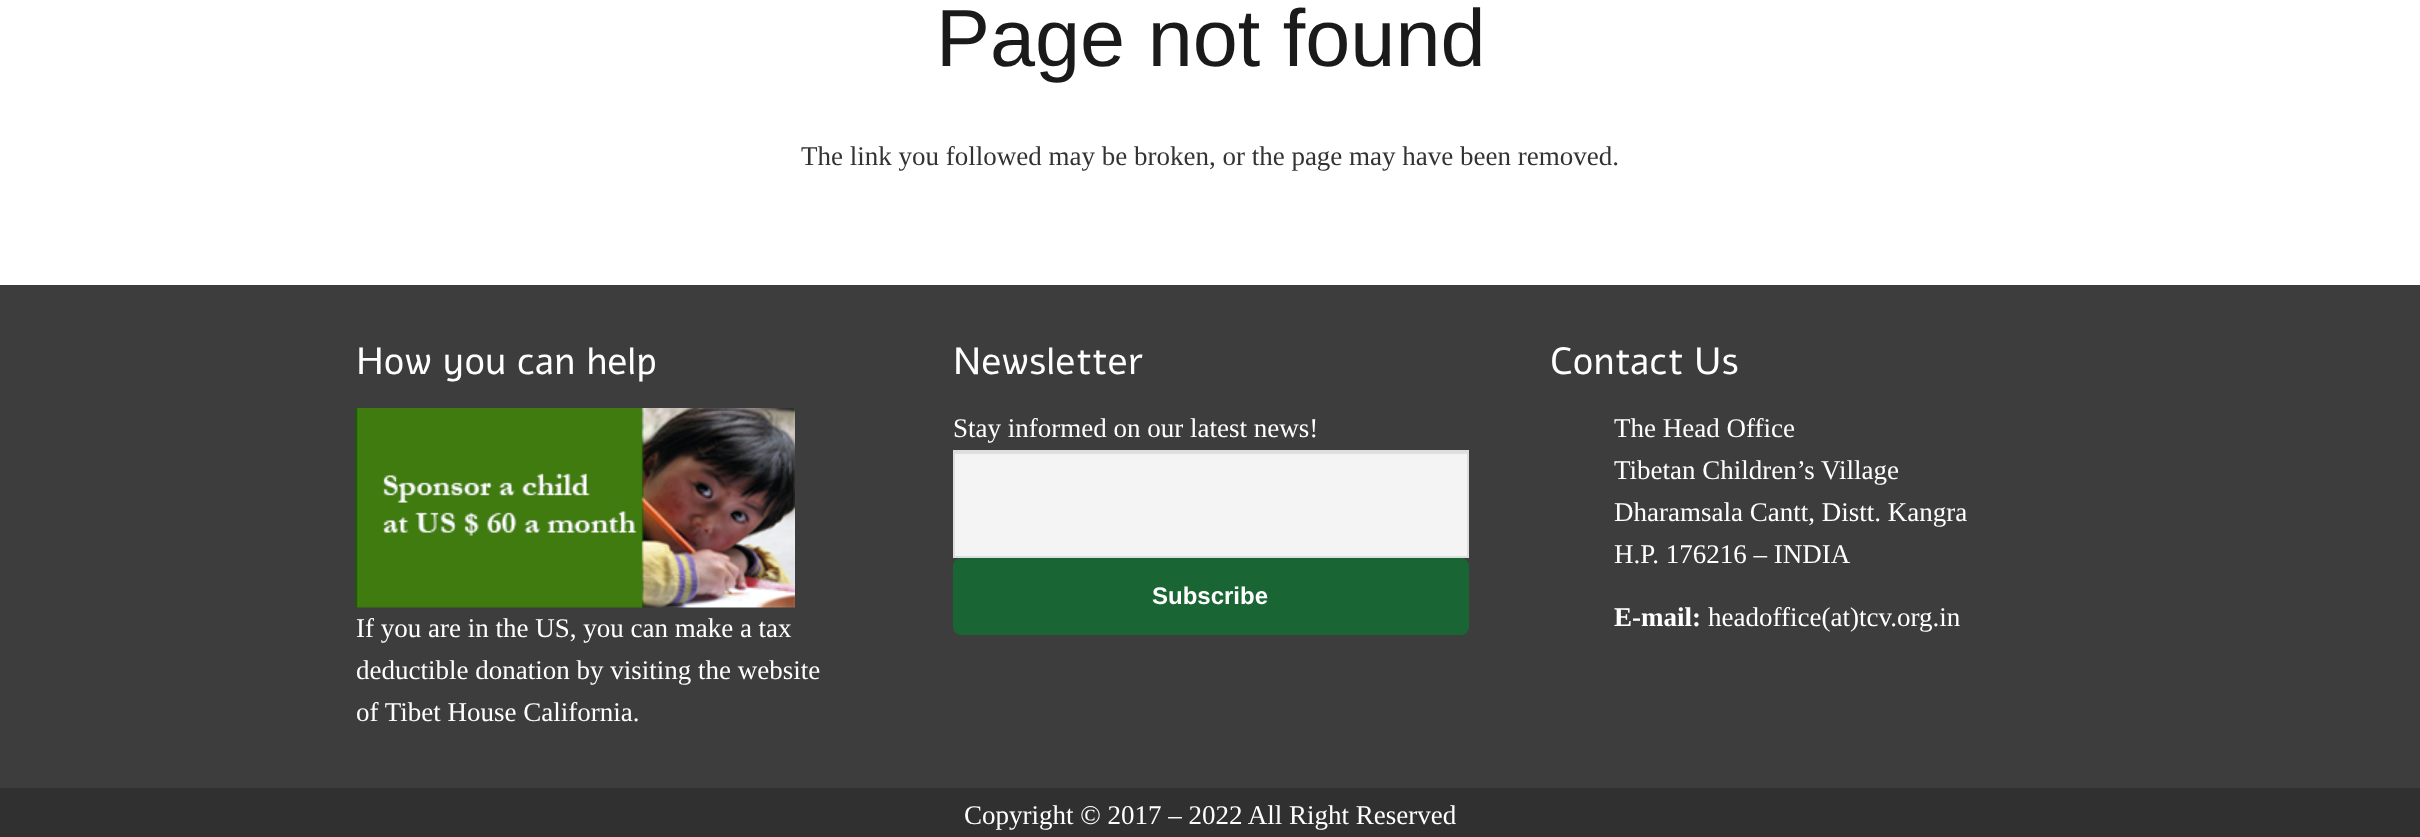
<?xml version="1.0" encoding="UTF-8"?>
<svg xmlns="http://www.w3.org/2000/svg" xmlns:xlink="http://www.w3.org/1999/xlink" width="2420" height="837">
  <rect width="100%" height="100%" fill="#ffffff" />
  <rect y="285" width="2420" height="503" fill="#3d3d3d" />
  <image x="355" y="408" width="440" height="200" xlink:href="image1.png" />
  <rect x="955" y="454" width="512" height="102" fill="#f4f4f4" />
  <rect x="954" y="452" width="513" height="2" fill="#e0e0e0" />
  <rect x="954" y="451" width="514" height="106" fill="none" stroke="#dddddd" stroke-width="2" />
  <rect x="953" y="558" width="516" height="77" rx="8" fill="#196534" />
  <rect y="788" width="2420" height="49" fill="#303030" />
  <text x="936" y="66" style="font-family: Liberation Sans; font-size: 81px; fill: #1a1a1a">Page not found</text>
  <text x="801" y="165" style="font-family: Liberation Serif; font-size: 27px; fill: #333333">The link you followed may be broken, or the page may have been removed.</text>
  <text x="356" y="374" style="font-family: Alef; font-size: 37.75px; fill: #ffffff">How you can help</text>
  <text x="356" y="637" style="font-family: Liberation Serif; font-size: 27px; fill: #ffffff">If you are in the US, you can make a tax</text>
  <text x="356" y="679" style="font-family: Liberation Serif; font-size: 27px; fill: #ffffff">deductible donation by visiting the website</text>
  <text x="356" y="721" style="font-family: Liberation Serif; font-size: 27px; fill: #ffffff">of Tibet House California.</text>
  <text x="953" y="374" style="font-family: Alef; font-size: 37.75px; fill: #ffffff">Newsletter</text>
  <text x="953" y="437" style="font-family: Liberation Serif; font-size: 27px; fill: #ffffff">Stay informed on our latest news!</text>
  <text x="1152" y="604" style="font-family: Liberation Sans; font-size: 24px; font-weight: bold; fill: #ffffff">Subscribe</text>
  <text x="1550" y="374" style="font-family: Alef; font-size: 37.75px; fill: #ffffff">Contact Us</text>
  <text x="1614" y="437" style="font-family: Liberation Serif; font-size: 27px; fill: #ffffff">The Head Office</text>
  <text x="1614" y="479" style="font-family: Liberation Serif; font-size: 27px; fill: #ffffff">Tibetan Children’s Village</text>
  <text x="1614" y="521" style="font-family: Liberation Serif; font-size: 27px; fill: #ffffff">Dharamsala Cantt, Distt. Kangra</text>
  <text x="1614" y="563" style="font-family: Liberation Serif; font-size: 27px; fill: #ffffff">H.P. 176216 – INDIA</text>
  <text x="1614" y="626" style="font-family: Liberation Serif; font-size: 27px; font-weight: bold; fill: #ffffff">E-mail:</text>
  <text x="1708" y="626" style="font-family: Liberation Serif; font-size: 27px; fill: #ffffff">headoffice(at)tcv.org.in</text>
  <text x="964" y="824" style="font-family: Liberation Serif; font-size: 27px; fill: #ffffff">Copyright © 2017 – 2022 All Right Reserved</text>
</svg>
